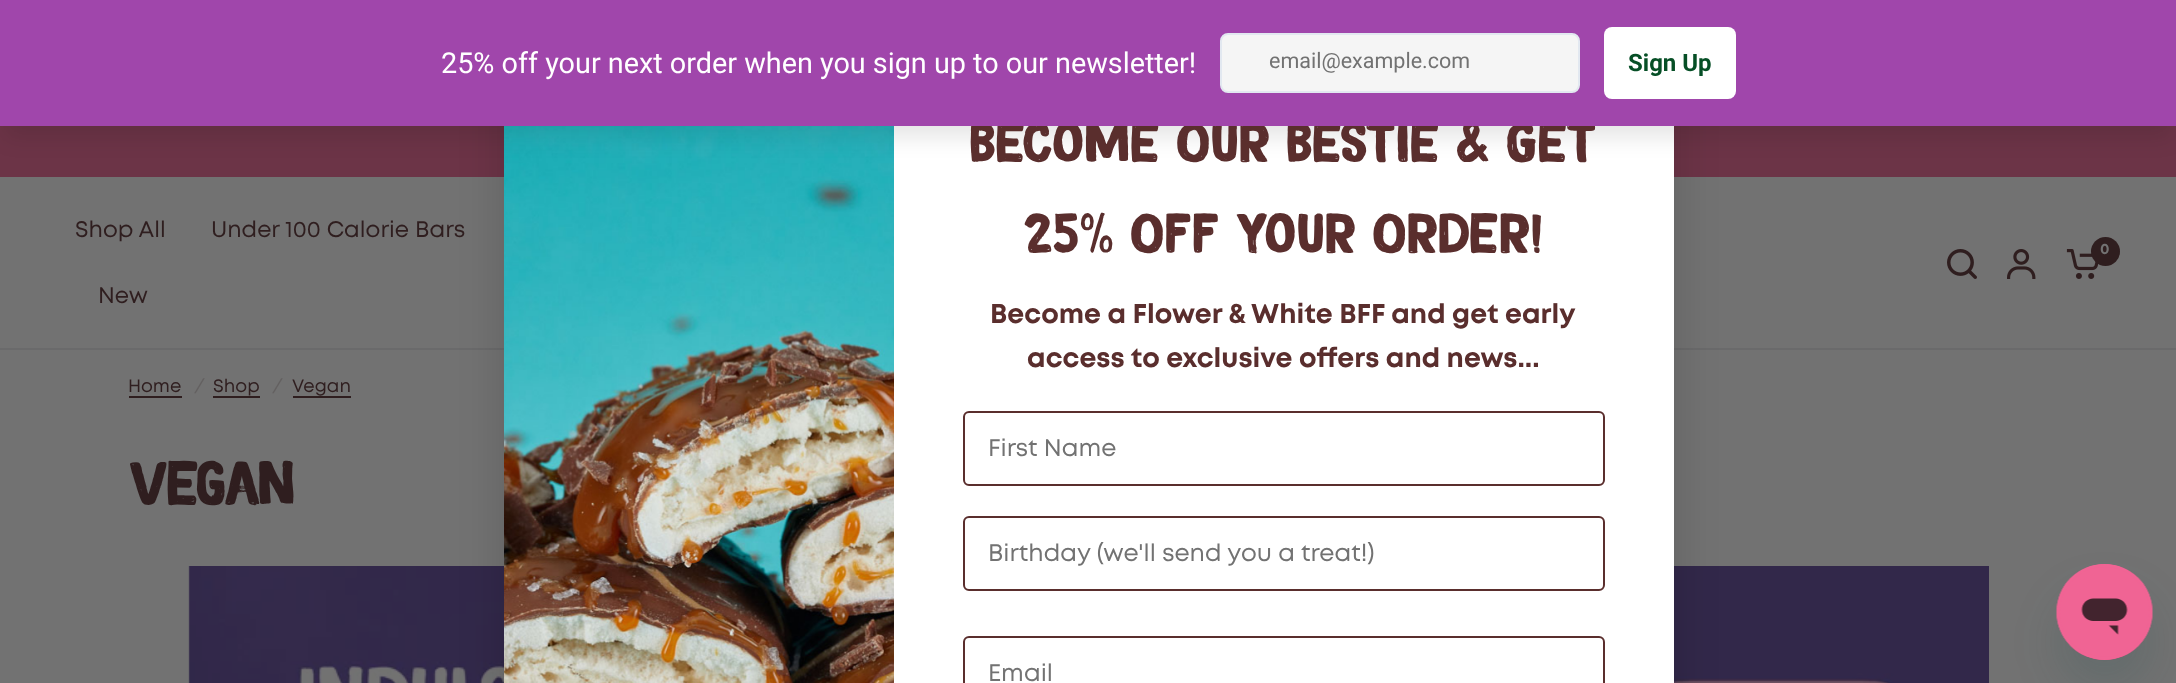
<?xml version="1.0" encoding="UTF-8"?>
<svg xmlns="http://www.w3.org/2000/svg" xmlns:xlink="http://www.w3.org/1999/xlink" width="2176" height="683">
  <rect width="100%" height="100%" fill="#727272" />
  <rect y="126" width="2176" height="51" fill="#6c3447" />
  <rect y="348" width="2176" height="2" fill="#6a6a6b" />
  <image x="188" y="566" width="1801" height="117" xlink:href="image5.png" />
  <rect x="504" y="30" width="1170" height="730" rx="9" fill="#000000" fill-opacity="0.15" filter="blur(22.5px)" />
  <rect x="894" y="126" width="780" height="557" fill="#ffffff" />
  <image x="504" y="126" width="390" height="557" xlink:href="image1.png" />
  <rect x="5" y="20" width="2167" height="117" fill="#000000" fill-opacity="0.1" filter="blur(11px)" />
  <rect x="964" y="412" width="640" height="73" rx="5" fill="none" stroke="#5a2e2d" stroke-width="2" />
  <rect x="964" y="517" width="640" height="73" rx="5" fill="none" stroke="#5a2e2d" stroke-width="2" />
  <rect x="964" y="637" width="640" height="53" rx="5" fill="none" stroke="#5a2e2d" stroke-width="2" />
  <image x="1947" y="249" width="30" height="30" xlink:href="image2.png" />
  <image x="2007" y="249" width="29" height="30" xlink:href="image3.png" />
  <image x="2066" y="249" width="33" height="30" xlink:href="image4.png" />
  <circle cx="2105.5" cy="251.5" r="14.5" fill="#2f1e1f" />
  <rect x="129" y="396" width="53" height="2" fill="#2f1e1f" />
  <rect x="213" y="396" width="47" height="2" fill="#2f1e1f" />
  <rect x="293" y="396" width="58" height="2" fill="#2f1e1f" />
  <rect x="2057" y="594" width="96" height="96" rx="48" fill="#17494d" fill-opacity="0.15" filter="blur(22.5px)" />
  <image x="2056" y="564" width="97" height="96" xlink:href="image6.png" />
  <text x="969" y="162" style="font-family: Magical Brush; font-size: 57px; fill: #5a2e2d">Become Our Bestie &amp; Get</text>
  <rect width="2176" height="126" fill="#a046ab" />
  <rect x="1221" y="34" width="358" height="58" rx="7" fill="#f5f5f5" stroke="#e2e8f0" stroke-width="2" />
  <text x="1269" y="68" style="font-family: Roboto; font-size: 21.5px; fill: #727272">email@example.com</text>
  <rect x="1604" y="27" width="132" height="72" rx="8" fill="#ffffff" />
  <text x="1628" y="71" style="font-family: Roboto; font-size: 24px; font-weight: bold; fill: #064f26">Sign Up</text>
  <text x="441" y="73" style="font-family: Roboto; font-size: 28.8px; fill: #ffffff">25% off your next order when you sign up to our newsletter!</text>
  <text x="1023" y="253" style="font-family: Magical Brush; font-size: 57px; fill: #5a2e2d">25% Off Your Order!</text>
  <text x="990" y="323" style="font-family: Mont; font-size: 27px; font-weight: bold; fill: #5a2e2d">Become a Flower &amp; White BFF and get early</text>
  <text x="1027" y="367" style="font-family: Mont; font-size: 27px; font-weight: bold; fill: #5a2e2d">access to exclusive offers and news...</text>
  <text x="988" y="456" style="font-family: Mont; font-size: 24px; fill: #727272">First Name</text>
  <text x="988" y="561" style="font-family: Mont; font-size: 24px; fill: #727272">Birthday (we'll send you a treat!)</text>
  <text x="988" y="681" style="font-family: Mont; font-size: 24px; fill: #727272">Email</text>
  <text x="75" y="237" style="font-family: Mont; font-size: 22.5px; fill: #2f1e1f">Shop All</text>
  <text x="211" y="237" style="font-family: Mont; font-size: 22.5px; fill: #2f1e1f">Under 100 Calorie Bars</text>
  <text x="98" y="303" style="font-family: Mont; font-size: 22.5px; fill: #2f1e1f">New</text>
  <text x="2100" y="254" style="font-family: Mont; font-size: 15px; font-weight: bold; fill: #727272">0</text>
  <text x="128" y="392" style="font-family: Mont; font-size: 18px; fill: #2f1e1f">Home</text>
  <text x="194" y="392" style="font-family: Mont; font-size: 18px; font-style: italic; fill: #646161">/</text>
  <text x="213" y="392" style="font-family: Mont; font-size: 18px; fill: #2f1e1f">Shop</text>
  <text x="272" y="392" style="font-family: Mont; font-size: 18px; font-style: italic; fill: #646161">/</text>
  <text x="292" y="392" style="font-family: Mont; font-size: 18px; fill: #2f1e1f">Vegan</text>
  <text x="128" y="505" style="font-family: Magical Brush; font-size: 63px; letter-spacing: -1.25px; fill: #2f1e1f">Vegan</text>
</svg>
